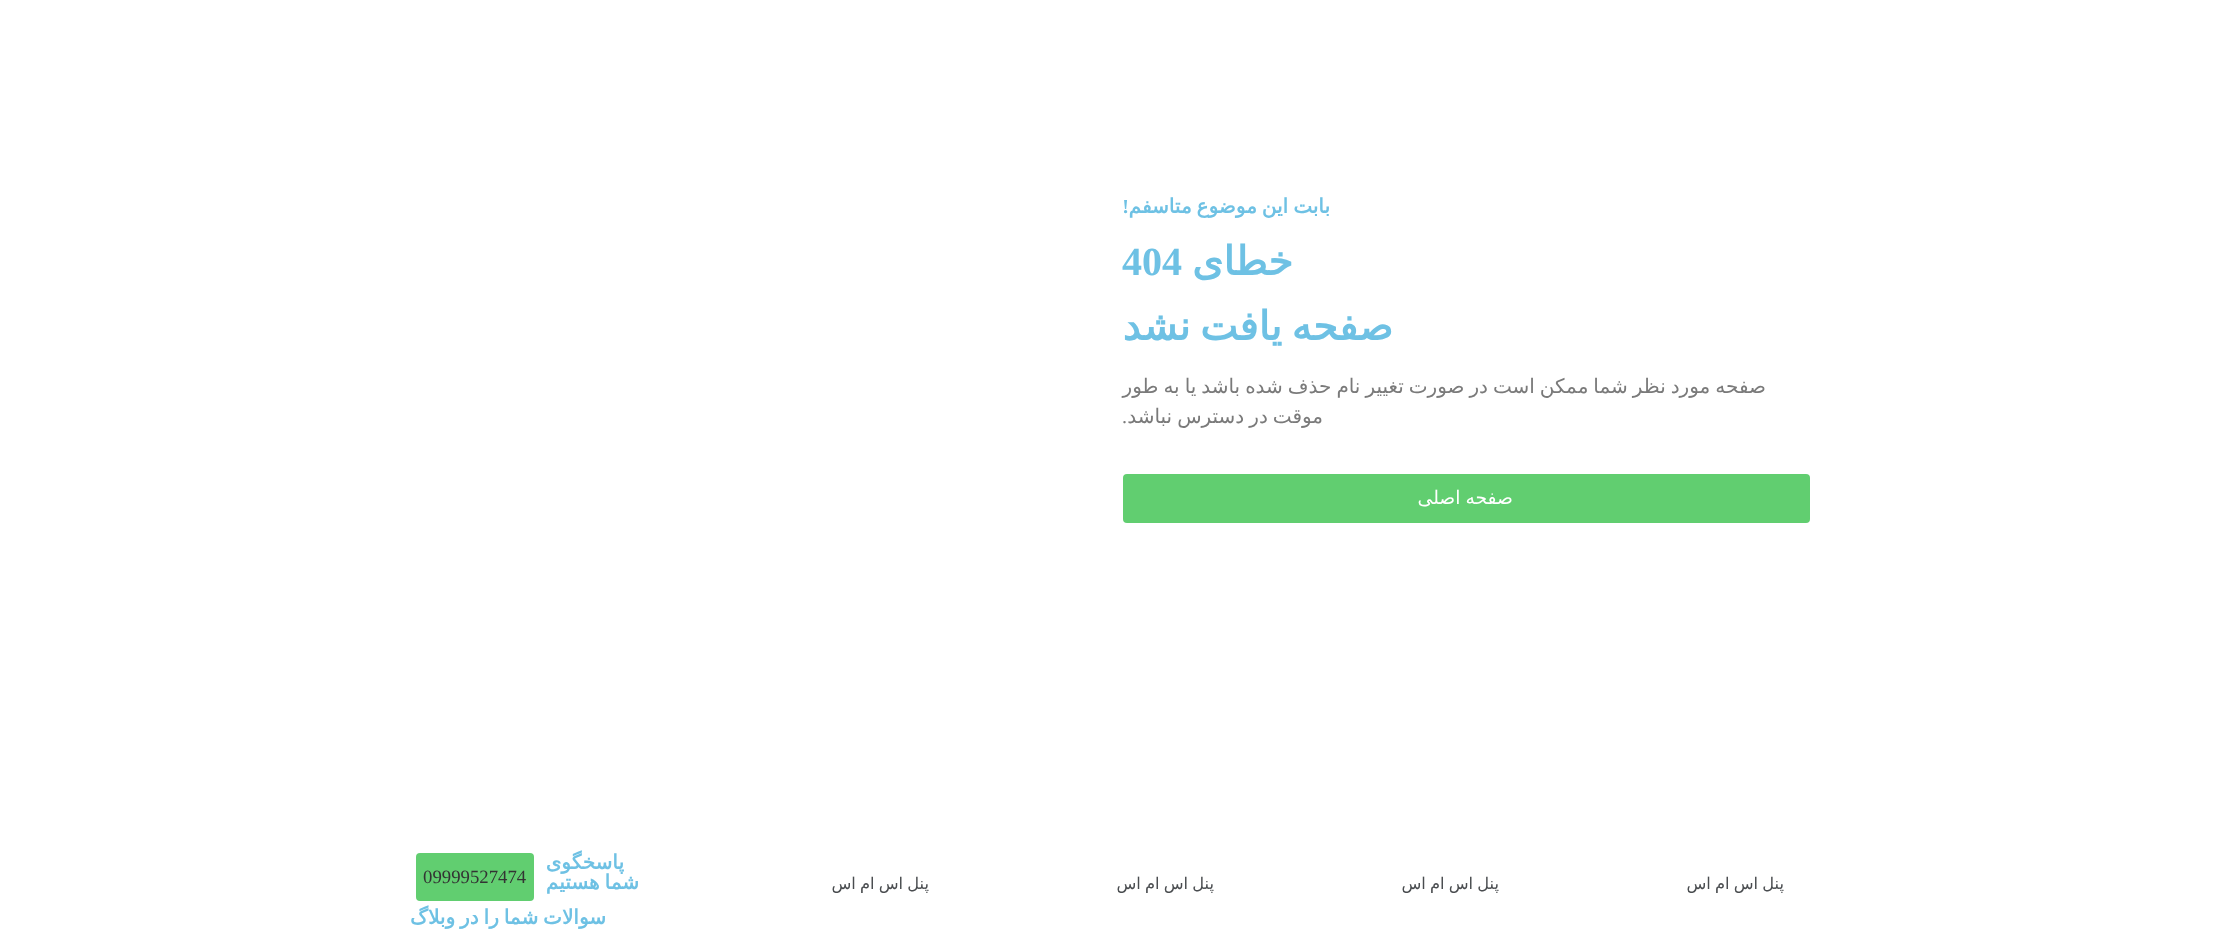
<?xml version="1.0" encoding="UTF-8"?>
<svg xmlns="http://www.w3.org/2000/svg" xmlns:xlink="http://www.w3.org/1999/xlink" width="2218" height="929">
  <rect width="100%" height="100%" fill="#ffffff" />
  <rect x="1123" y="474" width="687" height="49" rx="4" fill="#61ce70" />
  <rect x="416" y="853" width="118" height="48" rx="4" fill="#61ce70" />
  <text x="1330" y="213" word-spacing="-1.4" style="font-family: DejaVu Sans; font-size: 20px; font-weight: bold; direction: rtl; fill: #6ec1e4">بابت این موضوع متاسفم</text>
  <text x="1129" y="213" style="font-family: Liberation Serif; font-size: 20px; font-weight: bold; direction: rtl; fill: #6ec1e4">!</text>
  <text x="1293" y="275" style="font-family: DejaVu Sans; font-size: 40px; font-weight: bold; direction: rtl; fill: #6ec1e4">خطای</text>
  <text x="1122" y="275" style="font-family: Liberation Serif; font-size: 40px; font-weight: bold; fill: #6ec1e4">404</text>
  <text x="1393" y="340" word-spacing="-3" style="font-family: DejaVu Sans; font-size: 40px; font-weight: bold; direction: rtl; fill: #6ec1e4">صفحه یافت نشد</text>
  <text x="1766" y="393" word-spacing="-1.4" style="font-family: DejaVu Sans; font-size: 20px; direction: rtl; fill: #7a7a7a">صفحه مورد نظر شما ممکن است در صورت تغییر نام حذف شده باشد یا به طور</text>
  <text x="1323" y="423" word-spacing="-1.4" style="font-family: DejaVu Sans; font-size: 20px; direction: rtl; fill: #7a7a7a">موقت در دسترس نباشد</text>
  <text x="1127" y="423" style="font-family: Liberation Serif; font-size: 20px; direction: rtl; fill: #7a7a7a">.</text>
  <text x="1513" y="504" word-spacing="-1" style="font-family: DejaVu Sans; font-size: 18.75px; direction: rtl; fill: #ffffff">صفحه اصلی</text>
  <text x="1784" y="889" word-spacing="-1" style="font-family: DejaVu Sans; font-size: 16.25px; direction: rtl; fill: #494c4f">پنل اس ام اس</text>
  <text x="1499" y="889" word-spacing="-1" style="font-family: DejaVu Sans; font-size: 16.25px; direction: rtl; fill: #494c4f">پنل اس ام اس</text>
  <text x="1214" y="889" word-spacing="-1" style="font-family: DejaVu Sans; font-size: 16.25px; direction: rtl; fill: #494c4f">پنل اس ام اس</text>
  <text x="929" y="889" word-spacing="-1" style="font-family: DejaVu Sans; font-size: 16.25px; direction: rtl; fill: #494c4f">پنل اس ام اس</text>
  <text x="624" y="869" style="font-family: DejaVu Sans; font-size: 20px; font-weight: bold; direction: rtl; fill: #6ec1e4">پاسخگوی</text>
  <text x="639" y="889" word-spacing="-1.4" style="font-family: DejaVu Sans; font-size: 20px; font-weight: bold; direction: rtl; fill: #6ec1e4">شما هستیم</text>
  <text x="423" y="883" style="font-family: Liberation Serif; font-size: 18.75px; fill: #333333">09999527474</text>
  <text x="606" y="924" word-spacing="-1.4" style="font-family: DejaVu Sans; font-size: 20px; font-weight: bold; direction: rtl; fill: #6ec1e4">سوالات شما را در وبلاگ</text>
</svg>
